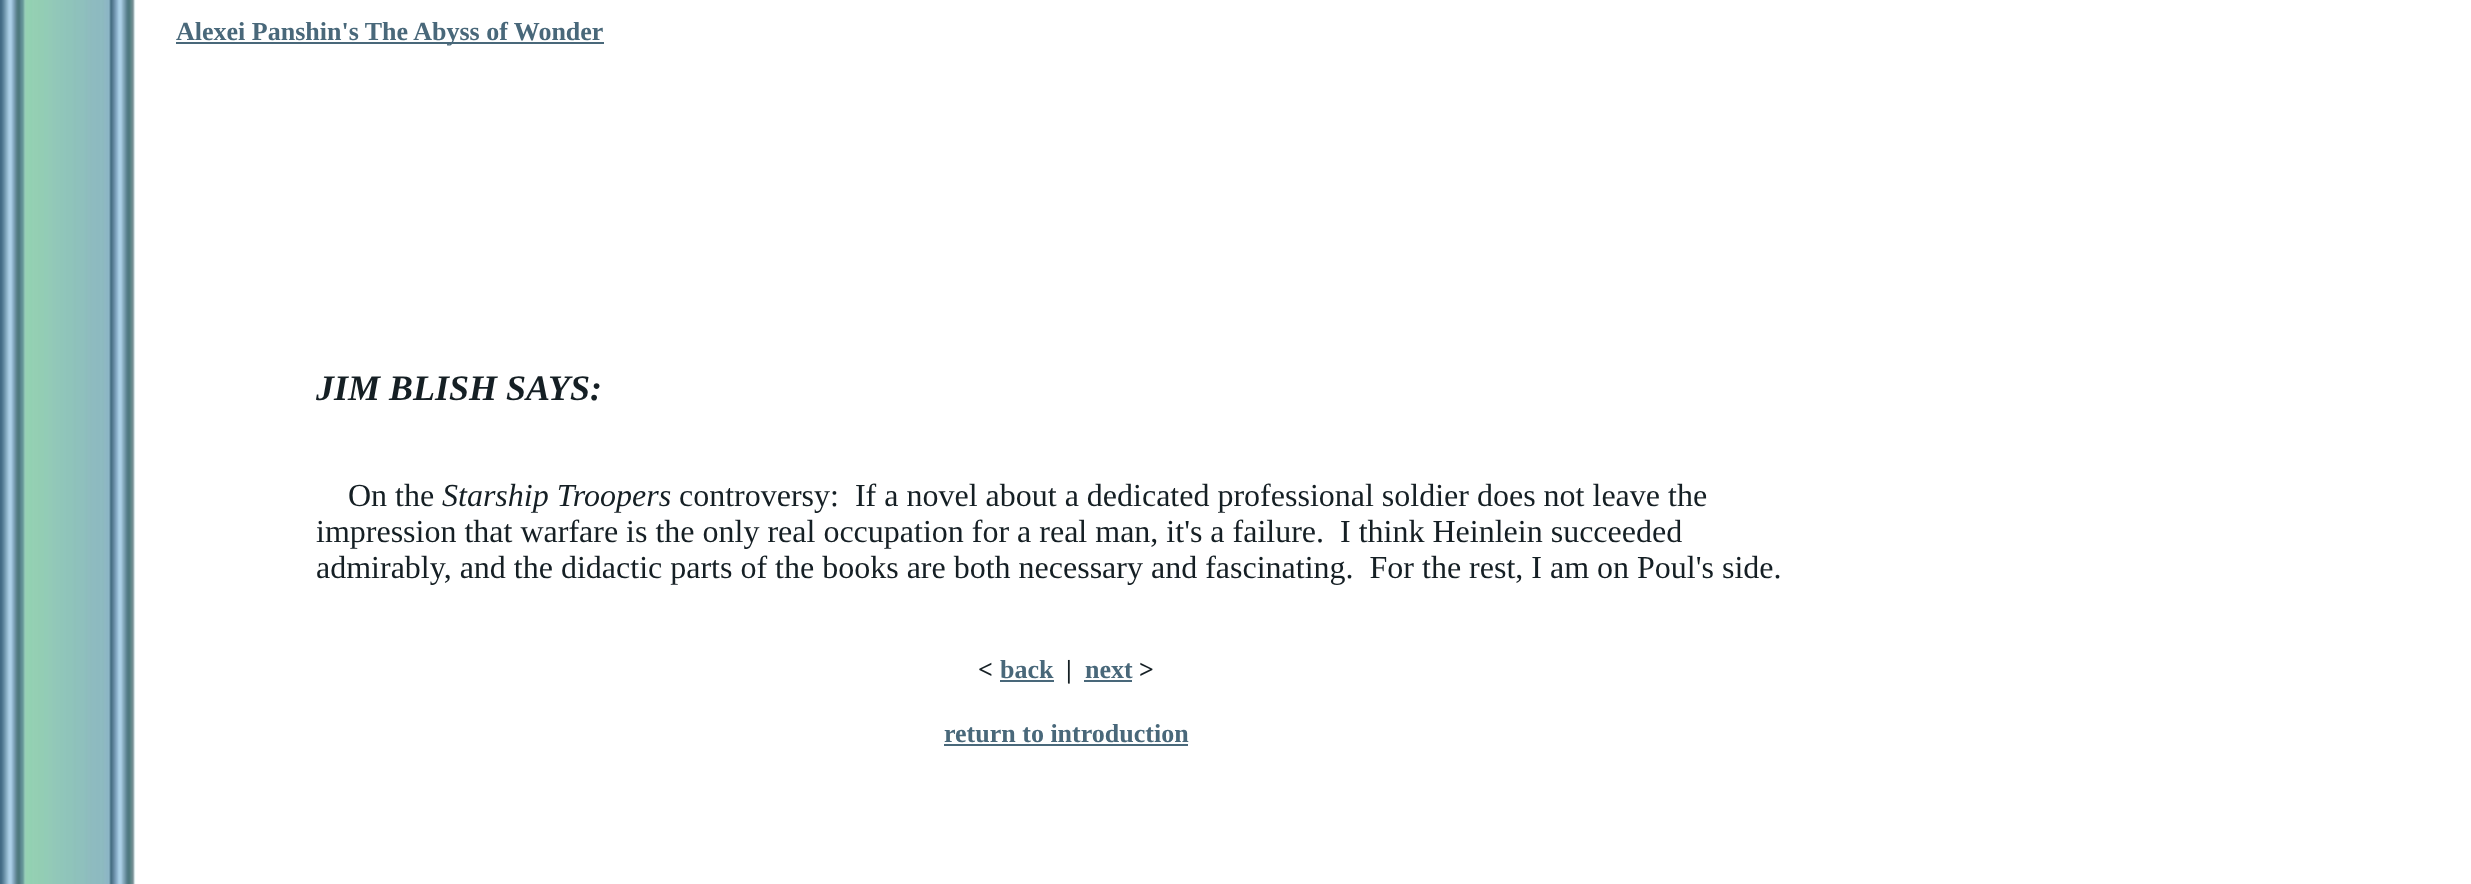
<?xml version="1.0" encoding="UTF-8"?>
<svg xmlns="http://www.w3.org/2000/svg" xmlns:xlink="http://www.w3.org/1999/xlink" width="2471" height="884">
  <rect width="100%" height="100%" fill="#ffffff" />
  <image x="0" y="0" width="136" height="884" xlink:href="image1.png" />
  <rect x="176" y="42" width="428" height="2" fill="#49687a" />
  <rect x="1000" y="680" width="54" height="2" fill="#49687a" />
  <rect x="1084" y="680" width="48" height="2" fill="#49687a" />
  <rect x="944" y="744" width="244" height="2" fill="#49687a" />
  <text x="176" y="40" style="font-family: Liberation Serif; font-size: 26px; font-weight: bold; fill: #49687a">Alexei Panshin's The Abyss of Wonder</text>
  <text x="316" y="400" style="font-family: Liberation Serif; font-size: 36px; font-weight: bold; font-style: italic; fill: #151f24">JIM BLISH SAYS:</text>
  <text x="348" y="506" style="font-family: Liberation Serif; font-size: 32px; fill: #151f24">On the</text>
  <text x="442" y="506" style="font-family: Liberation Serif; font-size: 32px; font-style: italic; fill: #151f24">Starship Troopers</text>
  <text x="679" y="506" style="font-family: Liberation Serif; font-size: 32px; fill: #151f24" xml:space="preserve">controversy:  If a novel about a dedicated professional soldier does not leave the</text>
  <text x="316" y="542" style="font-family: Liberation Serif; font-size: 32px; fill: #151f24" xml:space="preserve">impression that warfare is the only real occupation for a real man, it's a failure.  I think Heinlein succeeded</text>
  <text x="316" y="578" style="font-family: Liberation Serif; font-size: 32px; fill: #151f24" xml:space="preserve">admirably, and the didactic parts of the books are both necessary and fascinating.  For the rest, I am on Poul's side.</text>
  <text x="978" y="678" style="font-family: Liberation Serif; font-size: 26px; font-weight: bold; fill: #151f24">&lt;</text>
  <text x="1000" y="678" style="font-family: Liberation Serif; font-size: 26px; font-weight: bold; fill: #49687a">back</text>
  <text x="1066" y="678" style="font-family: Liberation Serif; font-size: 26px; font-weight: bold; fill: #151f24">|</text>
  <text x="1085" y="678" style="font-family: Liberation Serif; font-size: 26px; font-weight: bold; fill: #49687a">next</text>
  <text x="1139" y="678" style="font-family: Liberation Serif; font-size: 26px; font-weight: bold; fill: #151f24">&gt;</text>
  <text x="944" y="742" style="font-family: Liberation Serif; font-size: 26px; font-weight: bold; fill: #49687a">return to introduction</text>
</svg>
